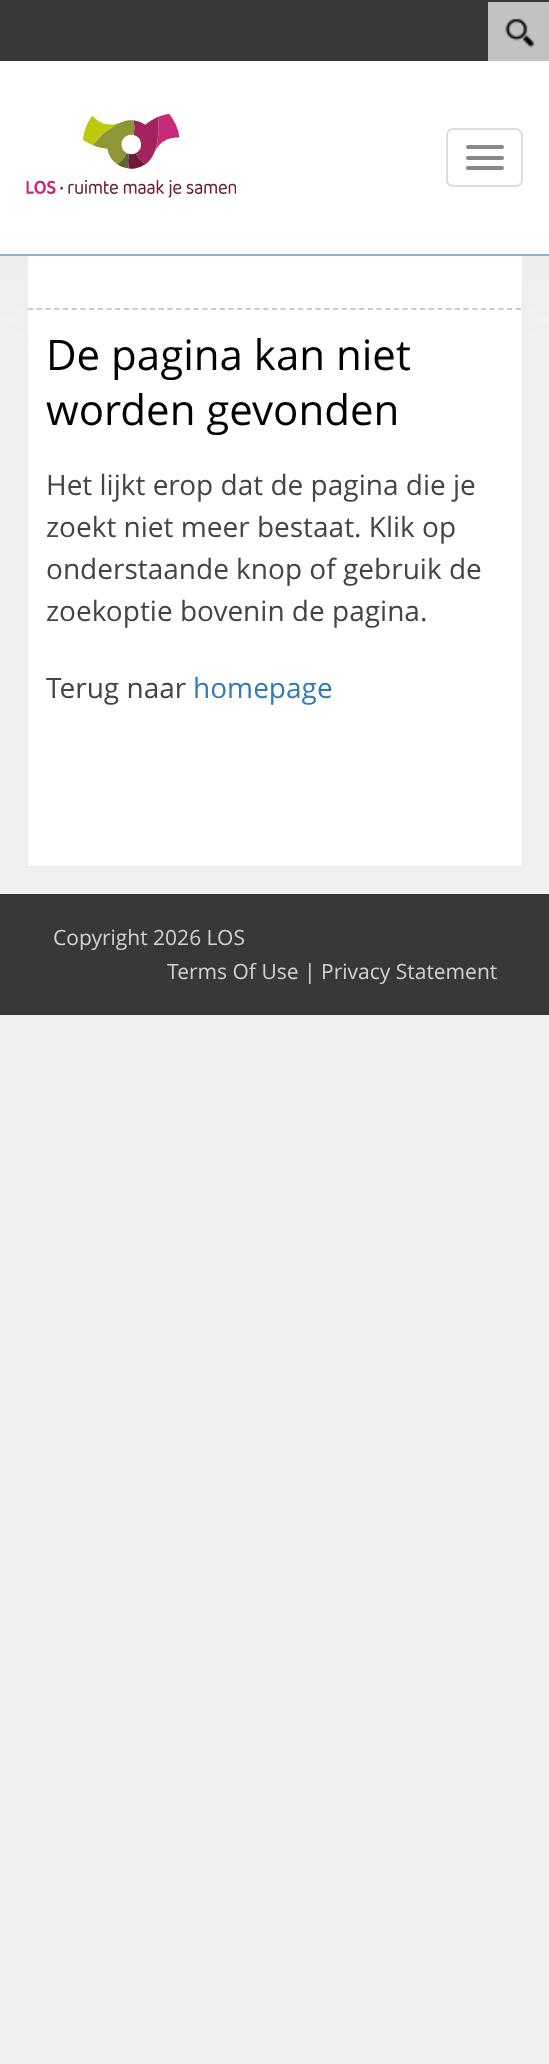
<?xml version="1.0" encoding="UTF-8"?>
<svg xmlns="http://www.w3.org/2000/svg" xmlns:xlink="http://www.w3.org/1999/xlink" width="549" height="2064">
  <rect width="100%" height="100%" fill="#f0f0f0" />
  <rect x="2" y="88" width="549" height="61" fill="#cacaca" filter="blur(87.5px)" />
  <rect width="549" height="61" fill="#383838" />
  <rect x="488" y="2" width="61" height="59" fill="#c3c1c1" />
  <image x="505" y="18" width="30" height="30" xlink:href="image1.png" />
  <rect y="61" width="549" height="193" fill="#ffffff" />
  <rect y="254" width="549" height="2" fill="#91afca" />
  <image x="26" y="114" width="210" height="84" xlink:href="image2.png" />
  <rect x="447" y="129" width="75" height="57" rx="6" fill="none" stroke="#dddddd" stroke-width="2" />
  <rect x="466" y="145" width="38" height="4" rx="2" fill="#888888" />
  <rect x="466" y="156" width="38" height="4" rx="2" fill="#888888" />
  <rect x="466" y="166" width="38" height="4" rx="2" fill="#888888" />
  <rect x="28" y="256" width="494" height="610" fill="#ffffff" />
  <rect x="522" y="274" width="2" height="594" fill="#ececec" />
  <rect x="26" y="866" width="497" height="2" fill="#ececec" />
  <rect x="26" y="274" width="2" height="594" fill="#ececec" />
  <path d="M 28 309 h 493.5" fill="none" stroke="#cccccc" stroke-width="1.8" stroke-dasharray="5.25 3.46" />
  <rect y="894" width="549" height="121" fill="#383838" />
  <text x="46" y="370" style="font-family: Open Sans; font-size: 42px; fill: #020202">De pagina kan niet</text>
  <text x="46" y="425" style="font-family: Open Sans; font-size: 42px; fill: #020202">worden gevonden</text>
  <text x="46" y="495" style="font-family: Open Sans; font-size: 28px; fill: #444444">Het lijkt erop dat de pagina die je</text>
  <text x="46" y="537" style="font-family: Open Sans; font-size: 28px; fill: #444444">zoekt niet meer bestaat. Klik op</text>
  <text x="46" y="579" style="font-family: Open Sans; font-size: 28px; fill: #444444">onderstaande knop of gebruik de</text>
  <text x="46" y="621" style="font-family: Open Sans; font-size: 28px; fill: #444444">zoekoptie bovenin de pagina.</text>
  <text x="46" y="698" style="font-family: Open Sans; font-size: 28px; fill: #444444">Terug naar</text>
  <text x="193" y="698" style="font-family: Open Sans; font-size: 28px; fill: #337ab7">homepage</text>
  <text x="53" y="945" style="font-family: Open Sans; font-size: 21px; fill: #d2d2d2">Copyright 2026 LOS</text>
  <text x="167" y="979" style="font-family: Open Sans; font-size: 21px; fill: #d2d2d2">Terms Of Use | Privacy Statement</text>
</svg>
